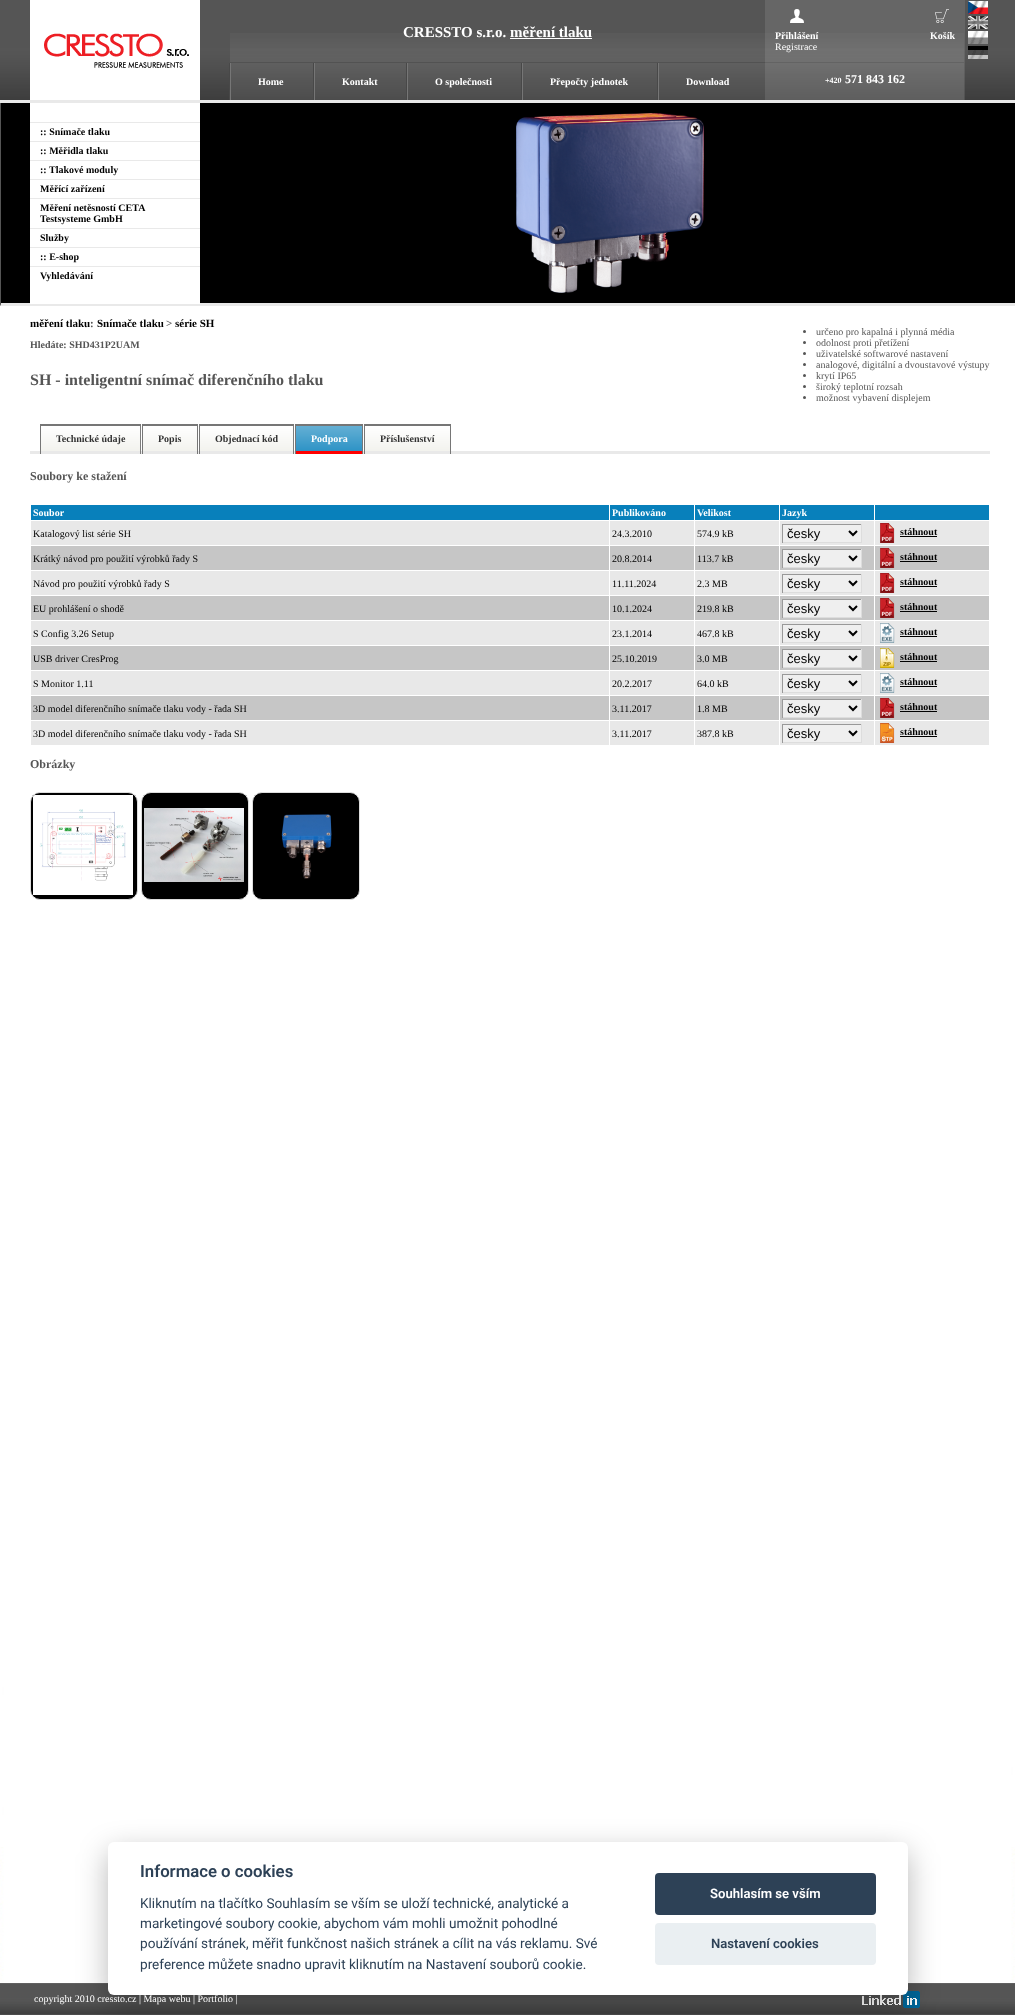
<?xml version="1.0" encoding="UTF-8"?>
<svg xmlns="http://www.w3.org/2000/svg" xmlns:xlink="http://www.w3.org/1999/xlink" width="1015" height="2015">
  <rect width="100%" height="100%" fill="#ffffff" />
  <image x="0" y="1152" width="1015" height="831" xlink:href="image1.png" />
  <image x="0" y="0" width="1015" height="100" xlink:href="image2.png" />
  <rect y="100" width="1015" height="3" fill="#e9e9e9" />
  <image x="30" y="0" width="170" height="100" xlink:href="image3.png" />
  <image x="230" y="33" width="734" height="67" xlink:href="image10.png" />
  <rect x="510" y="38" width="82" height="1" fill="#ffffff" />
  <rect x="765" width="200" height="100" fill="#ffffff" fill-opacity="0.1" />
  <image x="790" y="9" width="14" height="14" xlink:href="image4.png" />
  <image x="935" y="9" width="14" height="14" xlink:href="image5.png" />
  <image x="968" y="1" width="20" height="13" xlink:href="image6.png" />
  <image x="968" y="16" width="20" height="13" xlink:href="image7.png" />
  <image x="968" y="31" width="20" height="13" xlink:href="image8.png" />
  <image x="968" y="46" width="20" height="13" xlink:href="image9.png" />
  <image x="229" y="63" width="2" height="37" xlink:href="image11.png" />
  <image x="313" y="63" width="2" height="37" xlink:href="image11.png" />
  <image x="406" y="63" width="2" height="37" xlink:href="image11.png" />
  <image x="521" y="63" width="2" height="37" xlink:href="image11.png" />
  <image x="657" y="63" width="2" height="37" xlink:href="image11.png" />
  <rect y="103" width="1015" height="203" fill="#000000" />
  <path d="M 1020 306 h -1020 l 1 -3 h 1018 z" fill="#e9e9e9" />
  <path d="M 0 306 v -203 h 1 v 200 z" fill="#555555" />
  <image x="516" y="113" width="188" height="180" xlink:href="image12.png" />
  <rect x="30" y="103" width="170" height="201" fill="#ffffff" />
  <rect x="30" y="122" width="170" height="1" fill="#e9e9e9" />
  <rect x="30" y="141" width="170" height="1" fill="#e9e9e9" />
  <rect x="30" y="160" width="170" height="1" fill="#e9e9e9" />
  <rect x="30" y="179" width="170" height="1" fill="#e9e9e9" />
  <rect x="30" y="198" width="170" height="1" fill="#e9e9e9" />
  <rect x="30" y="228" width="170" height="1" fill="#e9e9e9" />
  <rect x="30" y="247" width="170" height="1" fill="#e9e9e9" />
  <rect x="30" y="266" width="170" height="1" fill="#e9e9e9" />
  <circle cx="804.5" cy="331.5" r="1.5" fill="#555555" />
  <circle cx="804.5" cy="342.5" r="1.5" fill="#555555" />
  <circle cx="804.5" cy="353.5" r="1.5" fill="#555555" />
  <circle cx="804.5" cy="364.5" r="1.5" fill="#555555" />
  <circle cx="804.5" cy="375.5" r="1.5" fill="#555555" />
  <circle cx="804.5" cy="386.5" r="1.5" fill="#555555" />
  <circle cx="804.5" cy="397.5" r="1.5" fill="#555555" />
  <rect x="30" y="451" width="960" height="3" fill="#e9e9e9" />
  <image x="40" y="424" width="4" height="30" xlink:href="image13.png" />
  <image x="44" y="424" width="97" height="30" xlink:href="image14.png" />
  <image x="142" y="424" width="4" height="30" xlink:href="image13.png" />
  <image x="146" y="424" width="52" height="30" xlink:href="image15.png" />
  <image x="199" y="424" width="4" height="30" xlink:href="image13.png" />
  <image x="203" y="424" width="91" height="30" xlink:href="image16.png" />
  <image x="295" y="424" width="4" height="30" xlink:href="image17.png" />
  <image x="299" y="424" width="64" height="30" xlink:href="image18.png" />
  <image x="364" y="424" width="4" height="30" xlink:href="image13.png" />
  <image x="368" y="424" width="83" height="30" xlink:href="image19.png" />
  <rect x="31" y="505" width="578" height="15" fill="#0880bb" />
  <rect x="610" y="505" width="84" height="15" fill="#0880bb" />
  <rect x="695" y="505" width="84" height="15" fill="#0880bb" />
  <rect x="780" y="505" width="94" height="15" fill="#0880bb" />
  <rect x="875" y="505" width="114" height="15" fill="#0880bb" />
  <rect x="31" y="521" width="578" height="24" fill="#e8e8e8" />
  <rect x="610" y="521" width="84" height="24" fill="#e8e8e8" />
  <rect x="695" y="521" width="84" height="24" fill="#e8e8e8" />
  <rect x="780" y="521" width="94" height="24" fill="#e8e8e8" />
  <rect x="783" y="525" width="78" height="17" fill="#efefef" />
  <rect x="782" y="524" width="80" height="1" fill="#999999" />
  <rect x="861" y="524" width="1" height="19" fill="#dddddd" />
  <rect x="782" y="542" width="80" height="1" fill="#dddddd" />
  <rect x="782" y="524" width="1" height="19" fill="#999999" />
  <path d="M 849 531 l 4 4 l 4 -4" fill="none" stroke="#000000" stroke-width="2" />
  <rect x="875" y="521" width="114" height="24" fill="#e8e8e8" />
  <image x="880" y="523" width="15" height="20" xlink:href="image20.png" />
  <rect x="900" y="536" width="37" height="1" fill="#000000" />
  <rect x="31" y="546" width="578" height="24" fill="#c6c6c6" />
  <rect x="610" y="546" width="84" height="24" fill="#c6c6c6" />
  <rect x="695" y="546" width="84" height="24" fill="#c6c6c6" />
  <rect x="780" y="546" width="94" height="24" fill="#c6c6c6" />
  <rect x="783" y="550" width="78" height="17" fill="#efefef" />
  <rect x="782" y="549" width="80" height="1" fill="#999999" />
  <rect x="861" y="549" width="1" height="19" fill="#dddddd" />
  <rect x="782" y="567" width="80" height="1" fill="#dddddd" />
  <rect x="782" y="549" width="1" height="19" fill="#999999" />
  <path d="M 849 556 l 4 4 l 4 -4" fill="none" stroke="#000000" stroke-width="2" />
  <rect x="875" y="546" width="114" height="24" fill="#c6c6c6" />
  <image x="880" y="548" width="15" height="20" xlink:href="image21.png" />
  <rect x="900" y="561" width="37" height="1" fill="#000000" />
  <rect x="31" y="571" width="578" height="24" fill="#e8e8e8" />
  <rect x="610" y="571" width="84" height="24" fill="#e8e8e8" />
  <rect x="695" y="571" width="84" height="24" fill="#e8e8e8" />
  <rect x="780" y="571" width="94" height="24" fill="#e8e8e8" />
  <rect x="783" y="575" width="78" height="17" fill="#efefef" />
  <rect x="782" y="574" width="80" height="1" fill="#999999" />
  <rect x="861" y="574" width="1" height="19" fill="#dddddd" />
  <rect x="782" y="592" width="80" height="1" fill="#dddddd" />
  <rect x="782" y="574" width="1" height="19" fill="#999999" />
  <path d="M 849 581 l 4 4 l 4 -4" fill="none" stroke="#000000" stroke-width="2" />
  <rect x="875" y="571" width="114" height="24" fill="#e8e8e8" />
  <image x="880" y="573" width="15" height="20" xlink:href="image20.png" />
  <rect x="900" y="586" width="37" height="1" fill="#000000" />
  <rect x="31" y="596" width="578" height="24" fill="#c6c6c6" />
  <rect x="610" y="596" width="84" height="24" fill="#c6c6c6" />
  <rect x="695" y="596" width="84" height="24" fill="#c6c6c6" />
  <rect x="780" y="596" width="94" height="24" fill="#c6c6c6" />
  <rect x="783" y="600" width="78" height="17" fill="#efefef" />
  <rect x="782" y="599" width="80" height="1" fill="#999999" />
  <rect x="861" y="599" width="1" height="19" fill="#dddddd" />
  <rect x="782" y="617" width="80" height="1" fill="#dddddd" />
  <rect x="782" y="599" width="1" height="19" fill="#999999" />
  <path d="M 849 606 l 4 4 l 4 -4" fill="none" stroke="#000000" stroke-width="2" />
  <rect x="875" y="596" width="114" height="24" fill="#c6c6c6" />
  <image x="880" y="598" width="15" height="20" xlink:href="image21.png" />
  <rect x="900" y="611" width="37" height="1" fill="#000000" />
  <rect x="31" y="621" width="578" height="24" fill="#e8e8e8" />
  <rect x="610" y="621" width="84" height="24" fill="#e8e8e8" />
  <rect x="695" y="621" width="84" height="24" fill="#e8e8e8" />
  <rect x="780" y="621" width="94" height="24" fill="#e8e8e8" />
  <rect x="783" y="625" width="78" height="17" fill="#efefef" />
  <rect x="782" y="624" width="80" height="1" fill="#999999" />
  <rect x="861" y="624" width="1" height="19" fill="#dddddd" />
  <rect x="782" y="642" width="80" height="1" fill="#dddddd" />
  <rect x="782" y="624" width="1" height="19" fill="#999999" />
  <path d="M 849 631 l 4 4 l 4 -4" fill="none" stroke="#000000" stroke-width="2" />
  <rect x="875" y="621" width="114" height="24" fill="#e8e8e8" />
  <image x="880" y="623" width="15" height="20" xlink:href="image22.png" />
  <rect x="900" y="636" width="37" height="1" fill="#000000" />
  <rect x="31" y="646" width="578" height="24" fill="#c6c6c6" />
  <rect x="610" y="646" width="84" height="24" fill="#c6c6c6" />
  <rect x="695" y="646" width="84" height="24" fill="#c6c6c6" />
  <rect x="780" y="646" width="94" height="24" fill="#c6c6c6" />
  <rect x="783" y="650" width="78" height="17" fill="#efefef" />
  <rect x="782" y="649" width="80" height="1" fill="#999999" />
  <rect x="861" y="649" width="1" height="19" fill="#dddddd" />
  <rect x="782" y="667" width="80" height="1" fill="#dddddd" />
  <rect x="782" y="649" width="1" height="19" fill="#999999" />
  <path d="M 849 656 l 4 4 l 4 -4" fill="none" stroke="#000000" stroke-width="2" />
  <rect x="875" y="646" width="114" height="24" fill="#c6c6c6" />
  <image x="880" y="648" width="15" height="20" xlink:href="image23.png" />
  <rect x="900" y="661" width="37" height="1" fill="#000000" />
  <rect x="31" y="671" width="578" height="24" fill="#e8e8e8" />
  <rect x="610" y="671" width="84" height="24" fill="#e8e8e8" />
  <rect x="695" y="671" width="84" height="24" fill="#e8e8e8" />
  <rect x="780" y="671" width="94" height="24" fill="#e8e8e8" />
  <rect x="783" y="675" width="78" height="17" fill="#efefef" />
  <rect x="782" y="674" width="80" height="1" fill="#999999" />
  <rect x="861" y="674" width="1" height="19" fill="#dddddd" />
  <rect x="782" y="692" width="80" height="1" fill="#dddddd" />
  <rect x="782" y="674" width="1" height="19" fill="#999999" />
  <path d="M 849 681 l 4 4 l 4 -4" fill="none" stroke="#000000" stroke-width="2" />
  <rect x="875" y="671" width="114" height="24" fill="#e8e8e8" />
  <image x="880" y="673" width="15" height="20" xlink:href="image22.png" />
  <rect x="900" y="686" width="37" height="1" fill="#000000" />
  <rect x="31" y="696" width="578" height="24" fill="#c6c6c6" />
  <rect x="610" y="696" width="84" height="24" fill="#c6c6c6" />
  <rect x="695" y="696" width="84" height="24" fill="#c6c6c6" />
  <rect x="780" y="696" width="94" height="24" fill="#c6c6c6" />
  <rect x="783" y="700" width="78" height="17" fill="#efefef" />
  <rect x="782" y="699" width="80" height="1" fill="#999999" />
  <rect x="861" y="699" width="1" height="19" fill="#dddddd" />
  <rect x="782" y="717" width="80" height="1" fill="#dddddd" />
  <rect x="782" y="699" width="1" height="19" fill="#999999" />
  <path d="M 849 706 l 4 4 l 4 -4" fill="none" stroke="#000000" stroke-width="2" />
  <rect x="875" y="696" width="114" height="24" fill="#c6c6c6" />
  <image x="880" y="698" width="15" height="20" xlink:href="image21.png" />
  <rect x="900" y="711" width="37" height="1" fill="#000000" />
  <rect x="31" y="721" width="578" height="24" fill="#e8e8e8" />
  <rect x="610" y="721" width="84" height="24" fill="#e8e8e8" />
  <rect x="695" y="721" width="84" height="24" fill="#e8e8e8" />
  <rect x="780" y="721" width="94" height="24" fill="#e8e8e8" />
  <rect x="783" y="725" width="78" height="17" fill="#efefef" />
  <rect x="782" y="724" width="80" height="1" fill="#999999" />
  <rect x="861" y="724" width="1" height="19" fill="#dddddd" />
  <rect x="782" y="742" width="80" height="1" fill="#dddddd" />
  <rect x="782" y="724" width="1" height="19" fill="#999999" />
  <path d="M 849 731 l 4 4 l 4 -4" fill="none" stroke="#000000" stroke-width="2" />
  <rect x="875" y="721" width="114" height="24" fill="#e8e8e8" />
  <image x="880" y="723" width="15" height="20" xlink:href="image24.png" />
  <rect x="900" y="736" width="37" height="1" fill="#000000" />
  <rect x="30.5" y="792.5" width="107" height="107" rx="9.5" fill="#000000" stroke="#dddddd" />
  <image x="33" y="795" width="100" height="100" xlink:href="image25.png" />
  <rect x="141.5" y="792.5" width="107" height="107" rx="9.5" fill="#000000" stroke="#dddddd" />
  <image x="144" y="808" width="100" height="74" xlink:href="image26.png" />
  <rect x="252.5" y="792.5" width="107" height="107" rx="9.5" fill="#000000" stroke="#dddddd" />
  <image x="281" y="814" width="51" height="65" xlink:href="image27.png" />
  <image x="0" y="1983" width="1015" height="32" xlink:href="image28.png" />
  <image x="862" y="1991" width="58" height="17" xlink:href="image29.png" />
  <rect x="108" y="1852" width="800" height="153" rx="6" fill="#020203" fill-opacity="0.28" filter="blur(15px)" />
  <rect x="108" y="1842" width="800" height="153" rx="6" fill="#ffffff" />
  <rect x="655" y="1873" width="221" height="42" rx="4" fill="#2d4156" />
  <rect x="655" y="1923" width="221" height="42" rx="4" fill="#eaeff2" />
  <text x="403" y="37" style="font-family: Liberation Serif; font-size: 15px; font-weight: bold; fill: #ffffff">CRESSTO s.r.o. měření tlaku</text>
  <text x="775" y="39" style="font-family: Liberation Serif; font-size: 10px; font-weight: bold; fill: #ffffff">Přihlášení</text>
  <text x="775" y="50" style="font-family: Liberation Serif; font-size: 10px; fill: #ffffff">Registrace</text>
  <text x="930" y="39" style="font-family: Liberation Serif; font-size: 10px; font-weight: bold; fill: #ffffff">Košík</text>
  <text x="825" y="83" style="font-family: Liberation Serif; font-size: 8px; font-weight: bold; fill: #ffffff">+420</text>
  <text x="845" y="83" style="font-family: Liberation Serif; font-size: 12px; font-weight: bold; fill: #ffffff">571 843 162</text>
  <text x="258" y="85" style="font-family: Liberation Serif; font-size: 10px; font-weight: bold; fill: #ffffff">Home</text>
  <text x="342" y="85" style="font-family: Liberation Serif; font-size: 10px; font-weight: bold; fill: #ffffff">Kontakt</text>
  <text x="435" y="85" style="font-family: Liberation Serif; font-size: 10px; font-weight: bold; fill: #ffffff">O společnosti</text>
  <text x="550" y="85" style="font-family: Liberation Serif; font-size: 10px; font-weight: bold; fill: #ffffff">Přepočty jednotek</text>
  <text x="686" y="85" style="font-family: Liberation Serif; font-size: 10px; font-weight: bold; fill: #ffffff">Download</text>
  <text x="40" y="135" style="font-family: Liberation Serif; font-size: 10px; font-weight: bold; fill: #000000">:: Snímače tlaku</text>
  <text x="40" y="154" style="font-family: Liberation Serif; font-size: 10px; font-weight: bold; fill: #000000">:: Měřidla tlaku</text>
  <text x="40" y="173" style="font-family: Liberation Serif; font-size: 10px; font-weight: bold; fill: #000000">:: Tlakové moduly</text>
  <text x="40" y="192" style="font-family: Liberation Serif; font-size: 10px; font-weight: bold; fill: #000000">Měřící zařízení</text>
  <text x="40" y="211" style="font-family: Liberation Serif; font-size: 10px; font-weight: bold; fill: #000000">Měření netěsností CETA</text>
  <text x="40" y="222" style="font-family: Liberation Serif; font-size: 10px; font-weight: bold; fill: #000000">Testsysteme GmbH</text>
  <text x="40" y="241" style="font-family: Liberation Serif; font-size: 10px; font-weight: bold; fill: #000000">Služby</text>
  <text x="40" y="260" style="font-family: Liberation Serif; font-size: 10px; font-weight: bold; fill: #000000">:: E-shop</text>
  <text x="40" y="279" style="font-family: Liberation Serif; font-size: 10px; font-weight: bold; fill: #000000">Vyhledávání</text>
  <text x="30" y="327" style="font-family: Liberation Serif; font-size: 11px; font-weight: bold; fill: #000000">měření tlaku</text>
  <text x="90" y="327" style="font-family: Liberation Serif; font-size: 11px; font-weight: bold; fill: #555555">:</text>
  <text x="97" y="327" style="font-family: Liberation Serif; font-size: 11px; font-weight: bold; fill: #000000">Snímače tlaku</text>
  <text x="166" y="327" style="font-family: Liberation Serif; font-size: 11px; font-weight: bold; fill: #555555">&gt;</text>
  <text x="175" y="327" style="font-family: Liberation Serif; font-size: 11px; font-weight: bold; fill: #000000">série SH</text>
  <text x="30" y="348" style="font-family: Liberation Serif; font-size: 10px; font-weight: bold; fill: #555555">Hledáte: SHD431P2UAM</text>
  <text x="816" y="335" style="font-family: Liberation Serif; font-size: 10px; fill: #555555">určeno pro kapalná i plynná média</text>
  <text x="816" y="346" style="font-family: Liberation Serif; font-size: 10px; fill: #555555">odolnost proti přetížení</text>
  <text x="816" y="357" style="font-family: Liberation Serif; font-size: 10px; fill: #555555">uživatelské softwarové nastavení</text>
  <text x="816" y="368" style="font-family: Liberation Serif; font-size: 10px; fill: #555555">analogové, digitální a dvoustavové výstupy</text>
  <text x="816" y="379" style="font-family: Liberation Serif; font-size: 10px; fill: #555555">krytí IP65</text>
  <text x="816" y="390" style="font-family: Liberation Serif; font-size: 10px; fill: #555555">široký teplotní rozsah</text>
  <text x="816" y="401" style="font-family: Liberation Serif; font-size: 10px; fill: #555555">možnost vybavení displejem</text>
  <text x="30" y="385" style="font-family: Liberation Serif; font-size: 16px; font-weight: bold; fill: #555555">SH - inteligentní snímač diferenčního tlaku</text>
  <text x="56" y="442" style="font-family: Liberation Serif; font-size: 10px; font-weight: bold; fill: #333333">Technické údaje</text>
  <text x="158" y="442" style="font-family: Liberation Serif; font-size: 10px; font-weight: bold; fill: #333333">Popis</text>
  <text x="215" y="442" style="font-family: Liberation Serif; font-size: 10px; font-weight: bold; fill: #333333">Objednací kód</text>
  <text x="311" y="442" style="font-family: Liberation Serif; font-size: 10px; font-weight: bold; fill: #ffffff">Podpora</text>
  <text x="380" y="442" style="font-family: Liberation Serif; font-size: 10px; font-weight: bold; fill: #333333">Příslušenství</text>
  <text x="30" y="480" style="font-family: Liberation Serif; font-size: 12px; font-weight: bold; fill: #555555">Soubory ke stažení</text>
  <text x="33" y="516" style="font-family: Liberation Serif; font-size: 10px; font-weight: bold; fill: #ffffff">Soubor</text>
  <text x="612" y="516" style="font-family: Liberation Serif; font-size: 10px; font-weight: bold; fill: #ffffff">Publikováno</text>
  <text x="697" y="516" style="font-family: Liberation Serif; font-size: 10px; font-weight: bold; fill: #ffffff">Velikost</text>
  <text x="782" y="516" style="font-family: Liberation Serif; font-size: 10px; font-weight: bold; fill: #ffffff">Jazyk</text>
  <text x="33" y="537" style="font-family: Liberation Serif; font-size: 10px; fill: #000000">Katalogový list série SH</text>
  <text x="612" y="537" style="font-family: Liberation Serif; font-size: 10px; fill: #000000">24.3.2010</text>
  <text x="697" y="537" style="font-family: Liberation Serif; font-size: 10px; fill: #000000">574.9 kB</text>
  <text x="787" y="538" style="font-family: Liberation Sans; font-size: 13px; fill: #000000">česky</text>
  <text x="900" y="535" style="font-family: Liberation Serif; font-size: 10px; font-weight: bold; fill: #000000">stáhnout</text>
  <text x="33" y="562" style="font-family: Liberation Serif; font-size: 10px; fill: #000000">Krátký návod pro použití výrobků řady S</text>
  <text x="612" y="562" style="font-family: Liberation Serif; font-size: 10px; fill: #000000">20.8.2014</text>
  <text x="697" y="562" style="font-family: Liberation Serif; font-size: 10px; fill: #000000">113.7 kB</text>
  <text x="787" y="563" style="font-family: Liberation Sans; font-size: 13px; fill: #000000">česky</text>
  <text x="900" y="560" style="font-family: Liberation Serif; font-size: 10px; font-weight: bold; fill: #000000">stáhnout</text>
  <text x="33" y="587" style="font-family: Liberation Serif; font-size: 10px; fill: #000000">Návod pro použití výrobků řady S</text>
  <text x="612" y="587" style="font-family: Liberation Serif; font-size: 10px; fill: #000000">11.11.2024</text>
  <text x="697" y="587" style="font-family: Liberation Serif; font-size: 10px; fill: #000000">2.3 MB</text>
  <text x="787" y="588" style="font-family: Liberation Sans; font-size: 13px; fill: #000000">česky</text>
  <text x="900" y="585" style="font-family: Liberation Serif; font-size: 10px; font-weight: bold; fill: #000000">stáhnout</text>
  <text x="33" y="612" style="font-family: Liberation Serif; font-size: 10px; fill: #000000">EU prohlášení o shodě</text>
  <text x="612" y="612" style="font-family: Liberation Serif; font-size: 10px; fill: #000000">10.1.2024</text>
  <text x="697" y="612" style="font-family: Liberation Serif; font-size: 10px; fill: #000000">219.8 kB</text>
  <text x="787" y="613" style="font-family: Liberation Sans; font-size: 13px; fill: #000000">česky</text>
  <text x="900" y="610" style="font-family: Liberation Serif; font-size: 10px; font-weight: bold; fill: #000000">stáhnout</text>
  <text x="33" y="637" style="font-family: Liberation Serif; font-size: 10px; fill: #000000">S Config 3.26 Setup</text>
  <text x="612" y="637" style="font-family: Liberation Serif; font-size: 10px; fill: #000000">23.1.2014</text>
  <text x="697" y="637" style="font-family: Liberation Serif; font-size: 10px; fill: #000000">467.8 kB</text>
  <text x="787" y="638" style="font-family: Liberation Sans; font-size: 13px; fill: #000000">česky</text>
  <text x="900" y="635" style="font-family: Liberation Serif; font-size: 10px; font-weight: bold; fill: #000000">stáhnout</text>
  <text x="33" y="662" style="font-family: Liberation Serif; font-size: 10px; fill: #000000">USB driver CresProg</text>
  <text x="612" y="662" style="font-family: Liberation Serif; font-size: 10px; fill: #000000">25.10.2019</text>
  <text x="697" y="662" style="font-family: Liberation Serif; font-size: 10px; fill: #000000">3.0 MB</text>
  <text x="787" y="663" style="font-family: Liberation Sans; font-size: 13px; fill: #000000">česky</text>
  <text x="900" y="660" style="font-family: Liberation Serif; font-size: 10px; font-weight: bold; fill: #000000">stáhnout</text>
  <text x="33" y="687" style="font-family: Liberation Serif; font-size: 10px; fill: #000000">S Monitor 1.11</text>
  <text x="612" y="687" style="font-family: Liberation Serif; font-size: 10px; fill: #000000">20.2.2017</text>
  <text x="697" y="687" style="font-family: Liberation Serif; font-size: 10px; fill: #000000">64.0 kB</text>
  <text x="787" y="688" style="font-family: Liberation Sans; font-size: 13px; fill: #000000">česky</text>
  <text x="900" y="685" style="font-family: Liberation Serif; font-size: 10px; font-weight: bold; fill: #000000">stáhnout</text>
  <text x="33" y="712" style="font-family: Liberation Serif; font-size: 10px; fill: #000000">3D model diferenčního snímače tlaku vody - řada SH</text>
  <text x="612" y="712" style="font-family: Liberation Serif; font-size: 10px; fill: #000000">3.11.2017</text>
  <text x="697" y="712" style="font-family: Liberation Serif; font-size: 10px; fill: #000000">1.8 MB</text>
  <text x="787" y="713" style="font-family: Liberation Sans; font-size: 13px; fill: #000000">česky</text>
  <text x="900" y="710" style="font-family: Liberation Serif; font-size: 10px; font-weight: bold; fill: #000000">stáhnout</text>
  <text x="33" y="737" style="font-family: Liberation Serif; font-size: 10px; fill: #000000">3D model diferenčního snímače tlaku vody - řada SH</text>
  <text x="612" y="737" style="font-family: Liberation Serif; font-size: 10px; fill: #000000">3.11.2017</text>
  <text x="697" y="737" style="font-family: Liberation Serif; font-size: 10px; fill: #000000">387.8 kB</text>
  <text x="787" y="738" style="font-family: Liberation Sans; font-size: 13px; fill: #000000">česky</text>
  <text x="900" y="735" style="font-family: Liberation Serif; font-size: 10px; font-weight: bold; fill: #000000">stáhnout</text>
  <text x="30" y="768" style="font-family: Liberation Serif; font-size: 12px; font-weight: bold; fill: #555555">Obrázky</text>
  <text x="34" y="2002" style="font-family: Liberation Serif; font-size: 10px; fill: #ffffff">copyright 2010 cressto.cz | Mapa webu | Portfolio |</text>
  <text x="140" y="1877" style="font-family: Roboto; font-size: 16.75px; font-weight: 600; fill: #2d4156">Informace o cookies</text>
  <text x="140" y="1908" style="font-family: Roboto; font-size: 13.6px; fill: #2d4156">Kliknutím na tlačítko Souhlasím se vším se uloží technické, analytické a</text>
  <text x="140" y="1928" style="font-family: Roboto; font-size: 13.6px; fill: #2d4156">marketingové soubory cookie, abychom vám mohli umožnit pohodlné</text>
  <text x="140" y="1948" style="font-family: Roboto; font-size: 13.6px; fill: #2d4156">používání stránek, měřit funkčnost našich stránek a cílit na vás reklamu. Své</text>
  <text x="140" y="1969" style="font-family: Roboto; font-size: 13.6px; fill: #2d4156">preference můžete snadno upravit kliknutím na Nastavení souborů cookie.</text>
  <text x="710" y="1898" style="font-family: Roboto; font-size: 13.1px; font-weight: 600; fill: #ffffff">Souhlasím se vším</text>
  <text x="711" y="1948" style="font-family: Roboto; font-size: 13.1px; font-weight: 600; fill: #2d4156">Nastavení cookies</text>
</svg>
